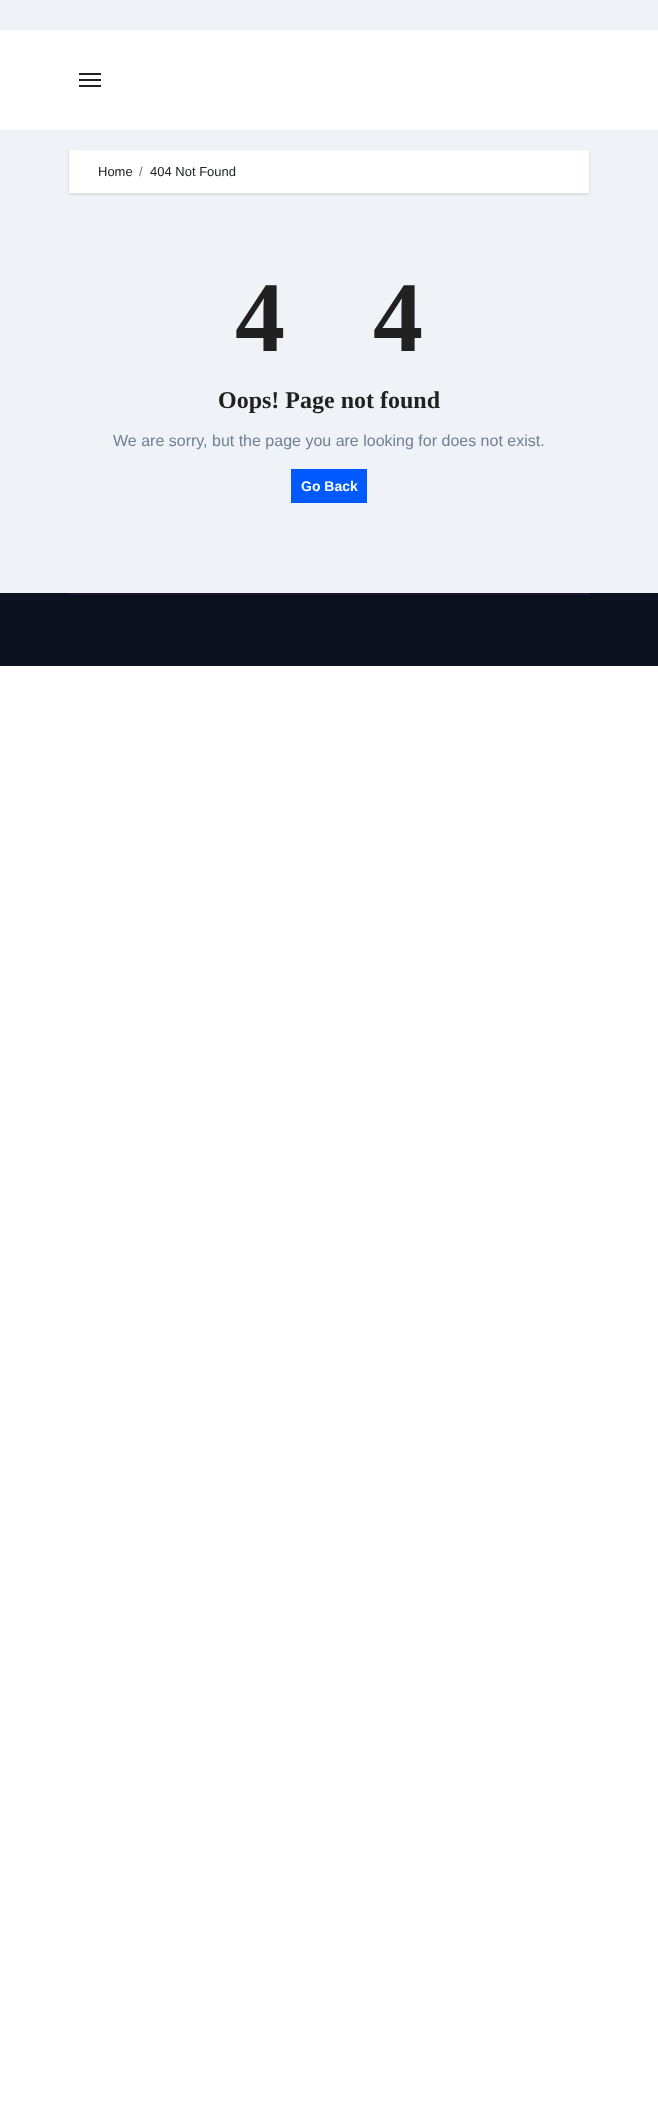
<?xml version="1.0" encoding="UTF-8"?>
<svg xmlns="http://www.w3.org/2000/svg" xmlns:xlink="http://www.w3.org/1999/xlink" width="658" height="2110">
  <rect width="100%" height="100%" fill="#ffffff" />
  <rect width="658" height="593" fill="#eff2f7" />
  <rect y="30" width="658" height="100" fill="#ffffff" />
  <rect x="79" y="73" width="22" height="2" fill="#212121" />
  <rect x="79" y="79" width="22" height="2" fill="#212121" />
  <rect x="79" y="85" width="22" height="2" fill="#212121" />
  <rect x="69" y="151" width="520" height="43" fill="#000000" fill-opacity="0.15" filter="blur(1.5px)" />
  <rect x="69" y="150" width="520" height="43" fill="#ffffff" />
  <rect x="291" y="469" width="76" height="34" fill="#005aff" />
  <rect y="593" width="658" height="73" fill="#0c1120" />
  <rect x="69" y="593" width="520" height="2" fill="#1a182e" />
  <text x="98" y="176" style="font-family: Liberation Sans; font-size: 13px; fill: #212121">Home</text>
  <text x="139" y="176" style="font-family: Liberation Sans; font-size: 13px; fill: #6c757d">/</text>
  <text x="150" y="176" style="font-family: Liberation Sans; font-size: 13px; fill: #212529">404 Not Found</text>
  <text x="235" y="351" style="font-family: Liberation Serif; font-size: 100px; font-weight: bold; fill: #212121">4</text>
  <text x="373" y="351" style="font-family: Liberation Serif; font-size: 100px; font-weight: bold; fill: #212121">4</text>
  <text x="218" y="408" style="font-family: Liberation Serif; font-size: 24px; font-weight: bold; fill: #212121">Oops! Page not found</text>
  <text x="113" y="446" style="font-family: Liberation Sans; font-size: 16px; fill: #718096">We are sorry, but the page you are looking for does not exist.</text>
  <text x="301" y="491" style="font-family: Liberation Sans; font-size: 14px; font-weight: bold; fill: #ffffff">Go Back</text>
</svg>
